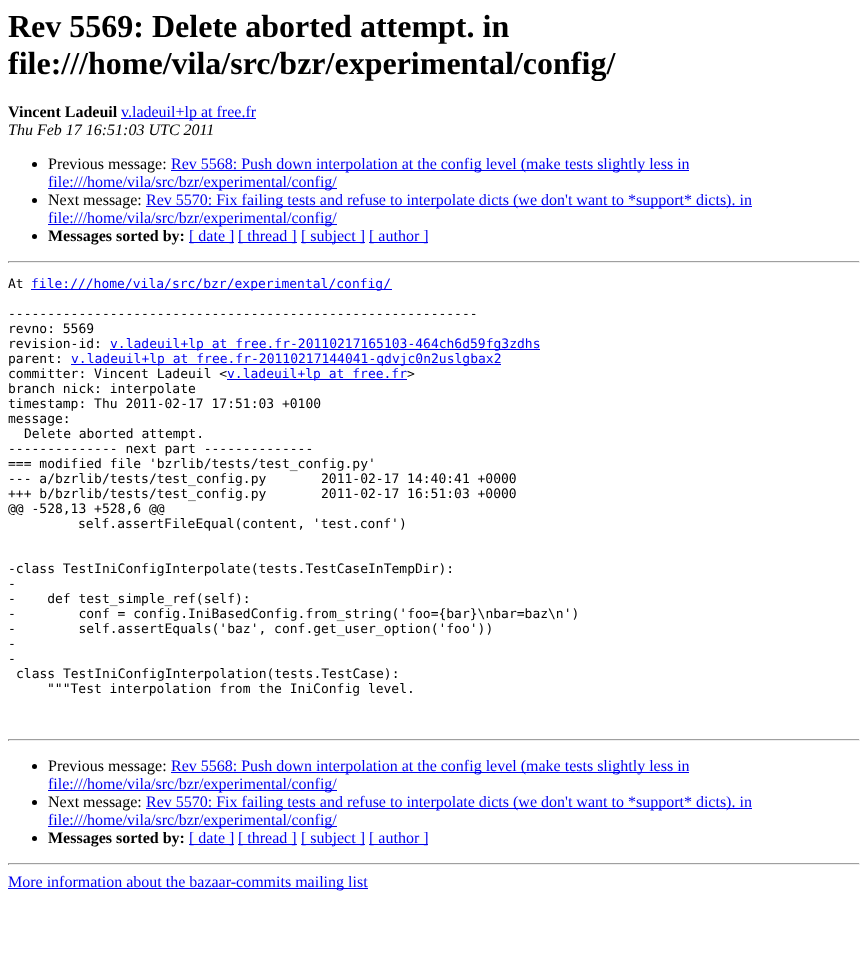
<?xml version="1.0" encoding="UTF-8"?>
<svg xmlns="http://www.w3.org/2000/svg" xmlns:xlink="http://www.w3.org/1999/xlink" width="868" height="967">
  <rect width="100%" height="100%" fill="#ffffff" />
  <rect x="121" y="118" width="135" height="1" fill="#0000ee" />
  <circle cx="34.5" cy="164.5" r="2.5" fill="#000000" />
  <rect x="171" y="170" width="518" height="1" fill="#0000ee" />
  <rect x="48" y="188" width="289" height="1" fill="#0000ee" />
  <circle cx="34.5" cy="200.5" r="2.5" fill="#000000" />
  <rect x="146" y="206" width="606" height="1" fill="#0000ee" />
  <rect x="48" y="224" width="289" height="1" fill="#0000ee" />
  <circle cx="34.5" cy="236.5" r="2.5" fill="#000000" />
  <rect x="189" y="242" width="45" height="1" fill="#0000ee" />
  <rect x="238" y="242" width="59" height="1" fill="#0000ee" />
  <rect x="301" y="242" width="64" height="1" fill="#0000ee" />
  <rect x="369" y="242" width="59" height="1" fill="#0000ee" />
  <rect x="8" y="261" width="852" height="1" fill="#9f9f9f" />
  <rect x="859" y="261" width="1" height="2" fill="#eeeeee" />
  <rect x="8" y="262" width="852" height="1" fill="#eeeeee" />
  <rect x="8" y="261" width="1" height="2" fill="#9f9f9f" />
  <rect x="31" y="289" width="361" height="1" fill="#0000ee" />
  <rect x="110" y="349" width="430" height="1" fill="#0000ee" />
  <rect x="71" y="364" width="430" height="1" fill="#0000ee" />
  <rect x="227" y="379" width="180" height="1" fill="#0000ee" />
  <rect x="8" y="739" width="852" height="1" fill="#9f9f9f" />
  <rect x="859" y="739" width="1" height="2" fill="#eeeeee" />
  <rect x="8" y="740" width="852" height="1" fill="#eeeeee" />
  <rect x="8" y="739" width="1" height="2" fill="#9f9f9f" />
  <circle cx="34.5" cy="766.5" r="2.5" fill="#000000" />
  <rect x="171" y="772" width="518" height="1" fill="#0000ee" />
  <rect x="48" y="790" width="289" height="1" fill="#0000ee" />
  <circle cx="34.5" cy="802.5" r="2.5" fill="#000000" />
  <rect x="146" y="808" width="606" height="1" fill="#0000ee" />
  <rect x="48" y="826" width="289" height="1" fill="#0000ee" />
  <circle cx="34.5" cy="838.5" r="2.5" fill="#000000" />
  <rect x="189" y="844" width="45" height="1" fill="#0000ee" />
  <rect x="238" y="844" width="59" height="1" fill="#0000ee" />
  <rect x="301" y="844" width="64" height="1" fill="#0000ee" />
  <rect x="369" y="844" width="59" height="1" fill="#0000ee" />
  <rect x="8" y="863" width="852" height="1" fill="#9f9f9f" />
  <rect x="859" y="863" width="1" height="2" fill="#eeeeee" />
  <rect x="8" y="864" width="852" height="1" fill="#eeeeee" />
  <rect x="8" y="863" width="1" height="2" fill="#9f9f9f" />
  <rect x="8" y="888" width="360" height="1" fill="#0000ee" />
  <text x="8" y="37" style="font-family: Liberation Serif; font-size: 32px; font-weight: bold; fill: #000000">Rev 5569: Delete aborted attempt. in</text>
  <text x="8" y="74" style="font-family: Liberation Serif; font-size: 32px; font-weight: bold; fill: #000000">file:///home/vila/src/bzr/experimental/config/</text>
  <text x="8" y="117" style="font-family: Liberation Serif; font-size: 16px; font-weight: bold; fill: #000000">Vincent Ladeuil</text>
  <text x="121" y="117" style="font-family: Liberation Serif; font-size: 16px; fill: #0000ee">v.ladeuil+lp at free.fr</text>
  <text x="8" y="135" style="font-family: Liberation Serif; font-size: 16px; font-style: italic; fill: #000000">Thu Feb 17 16:51:03 UTC 2011</text>
  <text x="48" y="169" style="font-family: Liberation Serif; font-size: 16px; fill: #000000">Previous message:</text>
  <text x="171" y="169" style="font-family: Liberation Serif; font-size: 16px; fill: #0000ee">Rev 5568: Push down interpolation at the config level (make tests slightly less in</text>
  <text x="48" y="187" style="font-family: Liberation Serif; font-size: 16px; fill: #0000ee">file:///home/vila/src/bzr/experimental/config/</text>
  <text x="48" y="205" style="font-family: Liberation Serif; font-size: 16px; fill: #000000">Next message:</text>
  <text x="146" y="205" style="font-family: Liberation Serif; font-size: 16px; fill: #0000ee">Rev 5570: Fix failing tests and refuse to interpolate dicts (we don't want to *support* dicts). in</text>
  <text x="48" y="223" style="font-family: Liberation Serif; font-size: 16px; fill: #0000ee">file:///home/vila/src/bzr/experimental/config/</text>
  <text x="48" y="241" style="font-family: Liberation Serif; font-size: 16px; font-weight: bold; fill: #000000">Messages sorted by:</text>
  <text x="189" y="241" style="font-family: Liberation Serif; font-size: 16px; fill: #0000ee">[ date ]</text>
  <text x="238" y="241" style="font-family: Liberation Serif; font-size: 16px; fill: #0000ee">[ thread ]</text>
  <text x="301" y="241" style="font-family: Liberation Serif; font-size: 16px; fill: #0000ee">[ subject ]</text>
  <text x="369" y="241" style="font-family: Liberation Serif; font-size: 16px; fill: #0000ee">[ author ]</text>
  <text x="8" y="288" style="font-family: DejaVu Sans Mono; font-size: 13px; fill: #000000">At</text>
  <text x="31" y="288" style="font-family: DejaVu Sans Mono; font-size: 13px; fill: #0000ee">file:///home/vila/src/bzr/experimental/config/</text>
  <text x="8" y="318" style="font-family: DejaVu Sans Mono; font-size: 13px; fill: #000000">------------------------------------------------------------</text>
  <text x="8" y="333" style="font-family: DejaVu Sans Mono; font-size: 13px; fill: #000000">revno: 5569</text>
  <text x="8" y="348" style="font-family: DejaVu Sans Mono; font-size: 13px; fill: #000000">revision-id:</text>
  <text x="110" y="348" style="font-family: DejaVu Sans Mono; font-size: 13px; fill: #0000ee">v.ladeuil+lp at free.fr-20110217165103-464ch6d59fg3zdhs</text>
  <text x="8" y="363" style="font-family: DejaVu Sans Mono; font-size: 13px; fill: #000000">parent:</text>
  <text x="71" y="363" style="font-family: DejaVu Sans Mono; font-size: 13px; fill: #0000ee">v.ladeuil+lp at free.fr-20110217144041-qdvjc0n2uslgbax2</text>
  <text x="8" y="378" style="font-family: DejaVu Sans Mono; font-size: 13px; fill: #000000">committer: Vincent Ladeuil &lt;</text>
  <text x="227" y="378" style="font-family: DejaVu Sans Mono; font-size: 13px; fill: #0000ee">v.ladeuil+lp at free.fr</text>
  <text x="407" y="378" style="font-family: DejaVu Sans Mono; font-size: 13px; fill: #000000">&gt;</text>
  <text x="8" y="393" style="font-family: DejaVu Sans Mono; font-size: 13px; fill: #000000">branch nick: interpolate</text>
  <text x="8" y="408" style="font-family: DejaVu Sans Mono; font-size: 13px; fill: #000000">timestamp: Thu 2011-02-17 17:51:03 +0100</text>
  <text x="8" y="423" style="font-family: DejaVu Sans Mono; font-size: 13px; fill: #000000">message:</text>
  <text x="24" y="438" style="font-family: DejaVu Sans Mono; font-size: 13px; fill: #000000">Delete aborted attempt.</text>
  <text x="8" y="453" style="font-family: DejaVu Sans Mono; font-size: 13px; fill: #000000">-------------- next part --------------</text>
  <text x="8" y="468" style="font-family: DejaVu Sans Mono; font-size: 13px; fill: #000000">=== modified file 'bzrlib/tests/test_config.py'</text>
  <text x="8" y="483" style="font-family: DejaVu Sans Mono; font-size: 13px; fill: #000000">--- a/bzrlib/tests/test_config.py</text>
  <text x="321" y="483" style="font-family: DejaVu Sans Mono; font-size: 13px; fill: #000000">2011-02-17 14:40:41 +0000</text>
  <text x="8" y="498" style="font-family: DejaVu Sans Mono; font-size: 13px; fill: #000000">+++ b/bzrlib/tests/test_config.py</text>
  <text x="321" y="498" style="font-family: DejaVu Sans Mono; font-size: 13px; fill: #000000">2011-02-17 16:51:03 +0000</text>
  <text x="8" y="513" style="font-family: DejaVu Sans Mono; font-size: 13px; fill: #000000">@@ -528,13 +528,6 @@</text>
  <text x="78" y="528" style="font-family: DejaVu Sans Mono; font-size: 13px; fill: #000000">self.assertFileEqual(content, 'test.conf')</text>
  <text x="8" y="573" style="font-family: DejaVu Sans Mono; font-size: 13px; fill: #000000">-class TestIniConfigInterpolate(tests.TestCaseInTempDir):</text>
  <text x="8" y="588" style="font-family: DejaVu Sans Mono; font-size: 13px; fill: #000000">-</text>
  <text x="8" y="603" style="font-family: DejaVu Sans Mono; font-size: 13px; fill: #000000" xml:space="preserve">-    def test_simple_ref(self):</text>
  <text x="8" y="618" style="font-family: DejaVu Sans Mono; font-size: 13px; fill: #000000" xml:space="preserve">-        conf = config.IniBasedConfig.from_string('foo={bar}\nbar=baz\n')</text>
  <text x="8" y="633" style="font-family: DejaVu Sans Mono; font-size: 13px; fill: #000000" xml:space="preserve">-        self.assertEquals('baz', conf.get_user_option('foo'))</text>
  <text x="8" y="648" style="font-family: DejaVu Sans Mono; font-size: 13px; fill: #000000">-</text>
  <text x="8" y="663" style="font-family: DejaVu Sans Mono; font-size: 13px; fill: #000000">-</text>
  <text x="16" y="678" style="font-family: DejaVu Sans Mono; font-size: 13px; fill: #000000">class TestIniConfigInterpolation(tests.TestCase):</text>
  <text x="47" y="693" style="font-family: DejaVu Sans Mono; font-size: 13px; fill: #000000">"""Test interpolation from the IniConfig level.</text>
  <text x="48" y="771" style="font-family: Liberation Serif; font-size: 16px; fill: #000000">Previous message:</text>
  <text x="171" y="771" style="font-family: Liberation Serif; font-size: 16px; fill: #0000ee">Rev 5568: Push down interpolation at the config level (make tests slightly less in</text>
  <text x="48" y="789" style="font-family: Liberation Serif; font-size: 16px; fill: #0000ee">file:///home/vila/src/bzr/experimental/config/</text>
  <text x="48" y="807" style="font-family: Liberation Serif; font-size: 16px; fill: #000000">Next message:</text>
  <text x="146" y="807" style="font-family: Liberation Serif; font-size: 16px; fill: #0000ee">Rev 5570: Fix failing tests and refuse to interpolate dicts (we don't want to *support* dicts). in</text>
  <text x="48" y="825" style="font-family: Liberation Serif; font-size: 16px; fill: #0000ee">file:///home/vila/src/bzr/experimental/config/</text>
  <text x="48" y="843" style="font-family: Liberation Serif; font-size: 16px; font-weight: bold; fill: #000000">Messages sorted by:</text>
  <text x="189" y="843" style="font-family: Liberation Serif; font-size: 16px; fill: #0000ee">[ date ]</text>
  <text x="238" y="843" style="font-family: Liberation Serif; font-size: 16px; fill: #0000ee">[ thread ]</text>
  <text x="301" y="843" style="font-family: Liberation Serif; font-size: 16px; fill: #0000ee">[ subject ]</text>
  <text x="369" y="843" style="font-family: Liberation Serif; font-size: 16px; fill: #0000ee">[ author ]</text>
  <text x="8" y="887" style="font-family: Liberation Serif; font-size: 16px; fill: #0000ee">More information about the bazaar-commits mailing list</text>
</svg>
